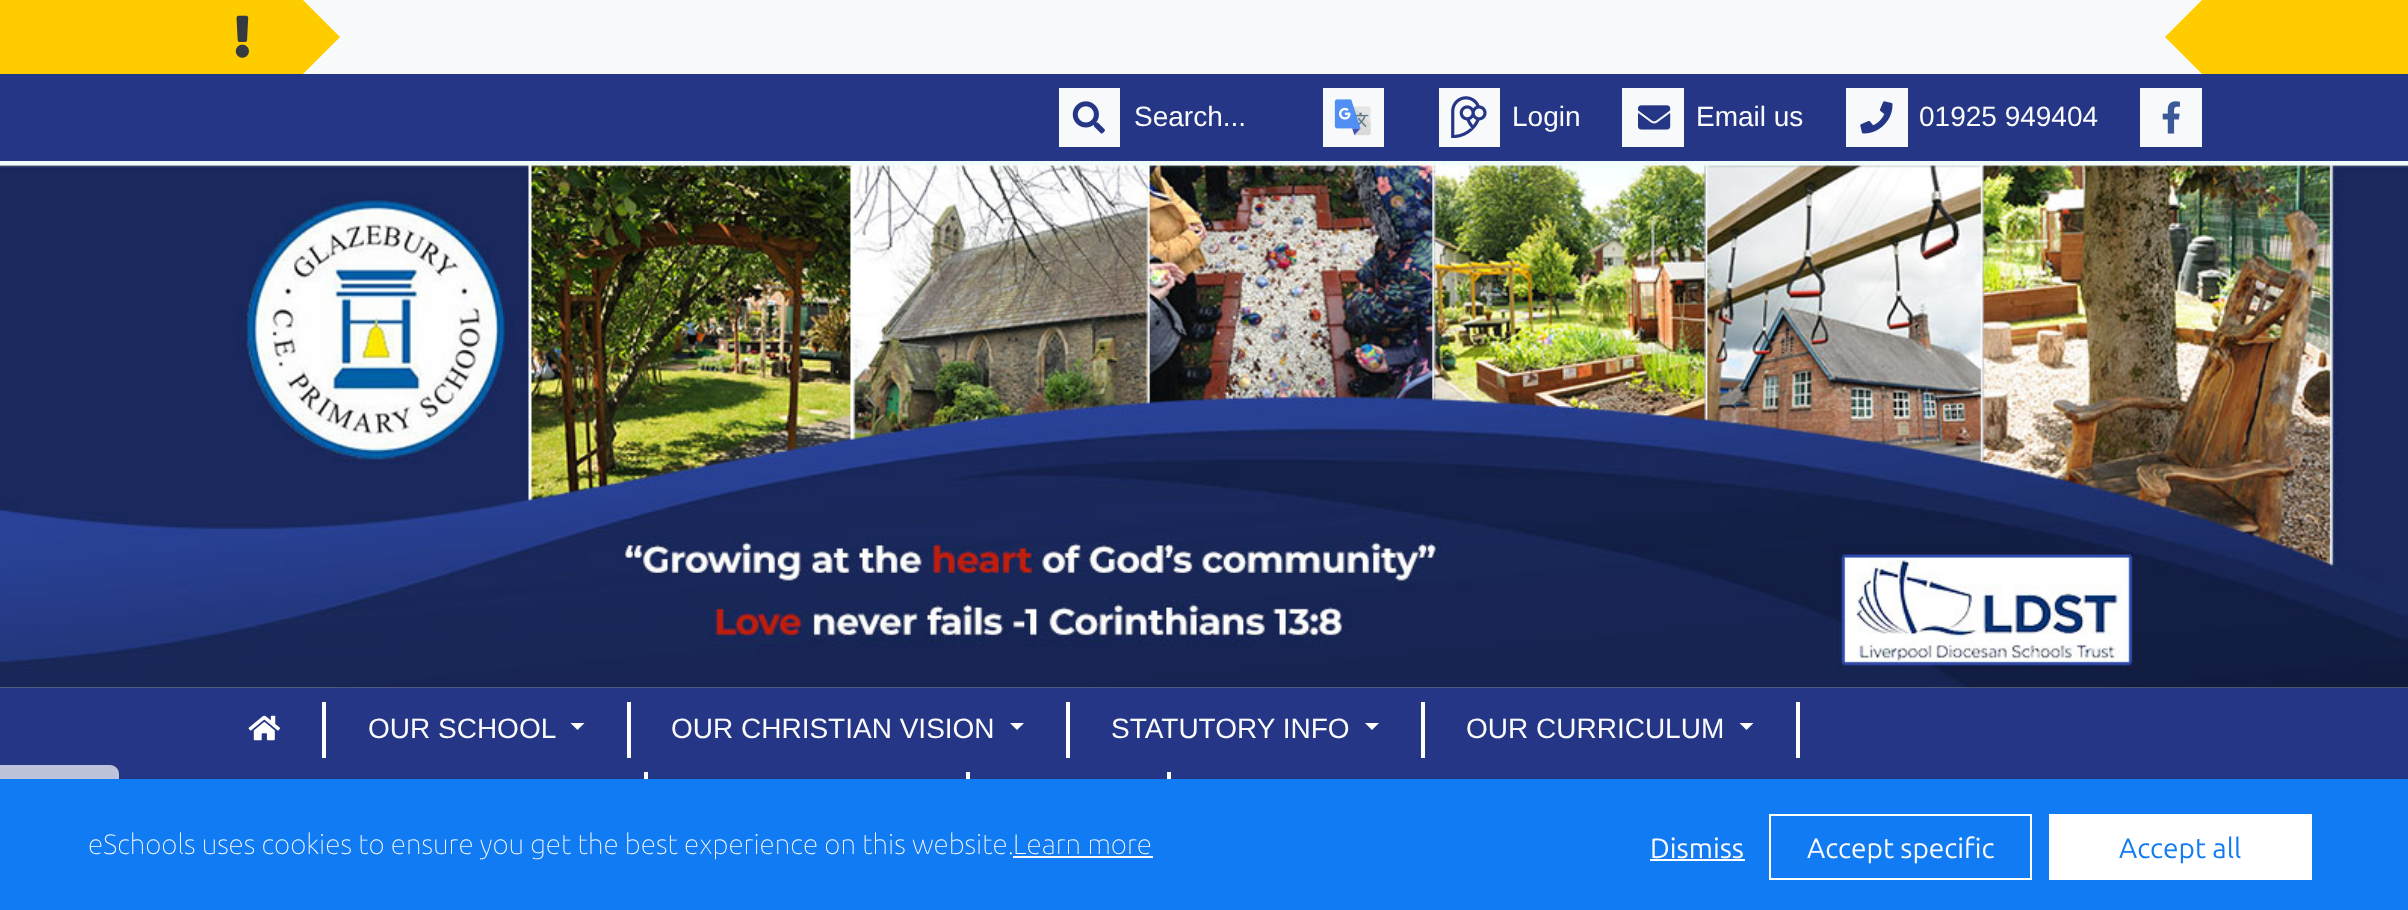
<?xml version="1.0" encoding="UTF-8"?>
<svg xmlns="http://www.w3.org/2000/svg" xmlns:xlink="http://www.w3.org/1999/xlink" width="2408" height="910">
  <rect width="100%" height="100%" fill="#ffffff" />
  <rect width="2408" height="74" fill="#ffcc00" />
  <rect x="303" width="1899" height="74" fill="#f8f9fa" />
  <image x="235" y="15" width="14" height="43" xlink:href="image1.png" />
  <path d="M 303 74 v -74 l 37 37 z" fill="#ffcc00" />
  <path d="M 2202 0 v 74 l -37 -37 z" fill="#ffcc00" />
  <rect y="74" width="2408" height="87" fill="#243685" />
  <rect x="1059" y="88" width="61" height="59" fill="#f8f9fa" />
  <image x="1072" y="101" width="33" height="33" xlink:href="image2.png" />
  <rect x="1323" y="88" width="61" height="59" fill="#f8f9fa" />
  <image x="1334" y="99" width="37" height="37" xlink:href="image3.png" />
  <rect x="1439" y="88" width="61" height="59" fill="#f8f9fa" />
  <image x="1451" y="96" width="36" height="42" xlink:href="image4.png" />
  <rect x="1622" y="88" width="62" height="59" fill="#f8f9fa" />
  <image x="1638" y="105" width="33" height="25" xlink:href="image5.png" />
  <rect x="1846" y="88" width="62" height="59" fill="#f8f9fa" />
  <image x="1860" y="101" width="33" height="33" xlink:href="image6.png" />
  <rect x="2140" y="88" width="62" height="59" fill="#f8f9fa" />
  <image x="2162" y="101" width="18" height="33" xlink:href="image7.png" />
  <image x="0" y="161" width="2408" height="527" xlink:href="image8.png" />
  <rect y="688" width="2408" height="91" fill="#243685" />
  <rect x="322" y="702" width="4" height="56" fill="#ffffff" />
  <image x="248" y="715" width="32" height="26" xlink:href="image9.png" />
  <rect x="627" y="702" width="4" height="56" fill="#ffffff" />
  <path d="M 570.5 723 h 14 l -7 7 z" fill="#ffffff" />
  <rect x="1066" y="702" width="4" height="56" fill="#ffffff" />
  <path d="M 1010 723 h 14 l -7 7 z" fill="#ffffff" />
  <rect x="1421" y="702" width="4" height="56" fill="#ffffff" />
  <path d="M 1365 723 h 14 l -7 7 z" fill="#ffffff" />
  <rect x="1796" y="702" width="4" height="56" fill="#ffffff" />
  <path d="M 1739.5 723 h 14 l -7 7 z" fill="#ffffff" />
  <rect x="644" y="772" width="4" height="7" fill="#ffffff" />
  <rect x="966" y="772" width="4" height="7" fill="#ffffff" />
  <rect x="1167" y="772" width="4" height="7" fill="#ffffff" />
  <path d="M 0 765 h 110 c 5 0 9 4 9 9 v 101 c 0 5 -4 9 -9 9 h -110 z" fill="#ffffff" fill-opacity="0.7" />
  <rect y="779" width="2408" height="131" fill="#117bf3" />
  <rect x="1013" y="856" width="140" height="2" fill="#f7f7f7" />
  <rect x="1650" y="859" width="95" height="2" fill="#ffffff" />
  <rect x="1770" y="815" width="261" height="64" fill="none" stroke="#ffffff" stroke-width="2" />
  <rect x="2049" y="814" width="263" height="66" fill="#ffffff" />
  <text x="1134" y="126" style="font-family: Liberation Sans; font-size: 28px; fill: #fbfbfc">Search...</text>
  <text x="1512" y="126" style="font-family: Liberation Sans; font-size: 28px; fill: #fbfbfc">Login</text>
  <text x="1696" y="126" style="font-family: Liberation Sans; font-size: 28px; fill: #fbfbfc">Email us</text>
  <text x="1919" y="126" style="font-family: Liberation Sans; font-size: 28px; fill: #fbfbfc">01925 949404</text>
  <text x="368" y="738" style="font-family: Liberation Sans; font-size: 28px; fill: #fbfbfc">OUR SCHOOL</text>
  <text x="671" y="738" style="font-family: Liberation Sans; font-size: 28px; fill: #fbfbfc">OUR CHRISTIAN VISION</text>
  <text x="1111" y="738" style="font-family: Liberation Sans; font-size: 28px; fill: #fbfbfc">STATUTORY INFO</text>
  <text x="1466" y="738" style="font-family: Liberation Sans; font-size: 28px; fill: #fbfbfc">OUR CURRICULUM</text>
  <text x="88" y="854" style="font-family: Ubuntu; font-size: 28px; font-weight: 100; fill: #fbfbfc">eSchools uses cookies to ensure you get the best experience on this website.</text>
  <text x="1013" y="854" style="font-family: Ubuntu; font-size: 28px; font-weight: 100; fill: #fbfbfc">Learn more</text>
  <text x="1650" y="858" style="font-family: Ubuntu; font-size: 28px; fill: #fbfbfc">Dismiss</text>
  <text x="1807" y="858" style="font-family: Ubuntu; font-size: 28px; fill: #fbfbfc">Accept specific</text>
  <text x="2119" y="858" style="font-family: Ubuntu; font-size: 28px; fill: #117bf3">Accept all</text>
</svg>
